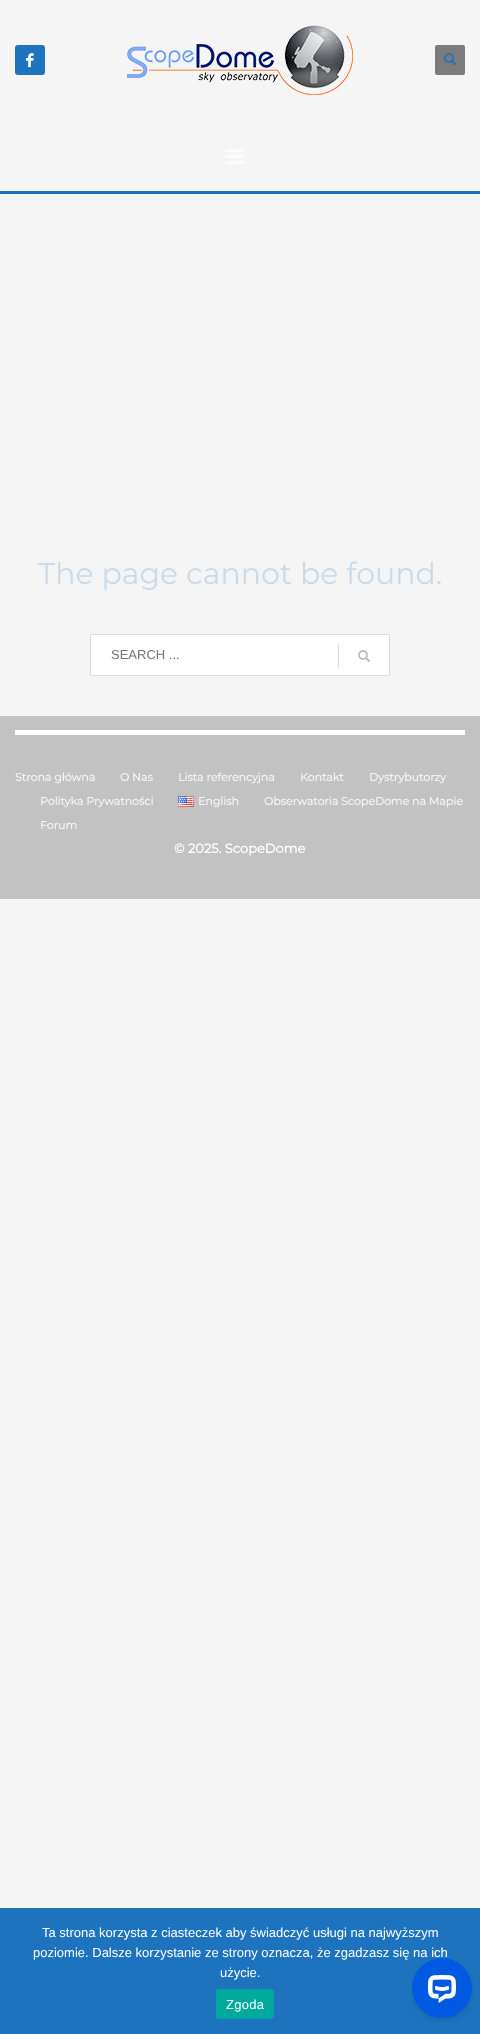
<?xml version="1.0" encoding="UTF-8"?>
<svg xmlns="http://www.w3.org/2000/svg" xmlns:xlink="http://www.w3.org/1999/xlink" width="480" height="2034">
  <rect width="100%" height="100%" fill="#f5f5f5" />
  <rect y="191" width="480" height="3" fill="#1e73be" />
  <rect x="15" y="45" width="30" height="30" rx="3" fill="#1e73be" />
  <image x="26" y="53" width="8" height="15" xlink:href="image1.png" />
  <image x="127" y="25" width="226" height="70" xlink:href="image2.png" />
  <rect x="435" y="45" width="30" height="30" rx="2" fill="#7c7c7c" />
  <image x="444" y="53" width="12" height="12" xlink:href="image3.png" />
  <rect x="225" y="149" width="20" height="3" rx="1.5" fill="#fcfcfc" />
  <rect x="225" y="155" width="20" height="3" rx="1.5" fill="#fcfcfc" />
  <rect x="225" y="161" width="20" height="3" rx="1.5" fill="#fcfcfc" />
  <rect x="90.5" y="634.5" width="299" height="41" fill="#ffffff" stroke="#dddddd" />
  <rect x="338" y="644" width="1" height="24" fill="#dddddd" />
  <image x="358" y="650" width="12" height="12" xlink:href="image4.png" />
  <rect y="720" width="480" height="179" fill="#c2c2c2" />
  <rect y="716" width="480" height="4" fill="#c4c4c4" />
  <rect x="15" y="730" width="450" height="5" fill="#ffffff" />
  <image x="178" y="796" width="16" height="11" xlink:href="image5.png" />
  <rect y="1908" width="480" height="126" fill="#1e73be" />
  <rect x="216" y="1989" width="58" height="30" rx="3" fill="#00a99d" />
  <text x="38" y="584" style="font-family: Montserrat; font-size: 30px; font-weight: 100; fill: #cadbea">The page cannot be found.</text>
  <text x="111" y="659" style="font-family: Liberation Sans; font-size: 13px; fill: #757575">SEARCH ...</text>
  <text x="15" y="781" style="font-family: Montserrat; font-size: 11px; font-weight: bold; fill: #f3f3f3">Strona główna</text>
  <text x="120" y="781" style="font-family: Montserrat; font-size: 11px; font-weight: bold; fill: #f3f3f3">O Nas</text>
  <text x="178" y="781" style="font-family: Montserrat; font-size: 11px; font-weight: bold; fill: #f3f3f3">Lista referencyjna</text>
  <text x="300" y="781" style="font-family: Montserrat; font-size: 11px; font-weight: bold; fill: #f3f3f3">Kontakt</text>
  <text x="369" y="781" style="font-family: Montserrat; font-size: 11px; font-weight: bold; fill: #f3f3f3">Dystrybutorzy</text>
  <text x="40" y="805" style="font-family: Montserrat; font-size: 11px; font-weight: bold; fill: #f3f3f3">Polityka Prywatności</text>
  <text x="198" y="805" style="font-family: Montserrat; font-size: 11px; font-weight: bold; fill: #f3f3f3">English</text>
  <text x="264" y="805" style="font-family: Montserrat; font-size: 11px; font-weight: bold; fill: #f3f3f3">Obserwatoria ScopeDome na Mapie</text>
  <text x="40" y="829" style="font-family: Montserrat; font-size: 11px; font-weight: bold; fill: #f3f3f3">Forum</text>
  <text x="174" y="853" style="font-family: Montserrat; font-size: 13px; font-weight: bold; fill: #ffffff">© 2025. ScopeDome</text>
  <text x="42" y="1937" style="font-family: Liberation Sans; font-size: 13px; fill: #ffffff">Ta strona korzysta z ciasteczek aby świadczyć usługi na najwyższym</text>
  <text x="33" y="1957" style="font-family: Liberation Sans; font-size: 13px; fill: #ffffff">poziomie. Dalsze korzystanie ze strony oznacza, że zgadzasz się na ich</text>
  <text x="220" y="1977" style="font-family: Liberation Sans; font-size: 13px; fill: #ffffff">użycie.</text>
  <text x="226" y="2009" style="font-family: Liberation Sans; font-size: 13px; letter-spacing: 0.25px; fill: #ffffff">Zgoda</text>
  <image x="410" y="1958" width="64" height="65" xlink:href="image6.png" />
</svg>
